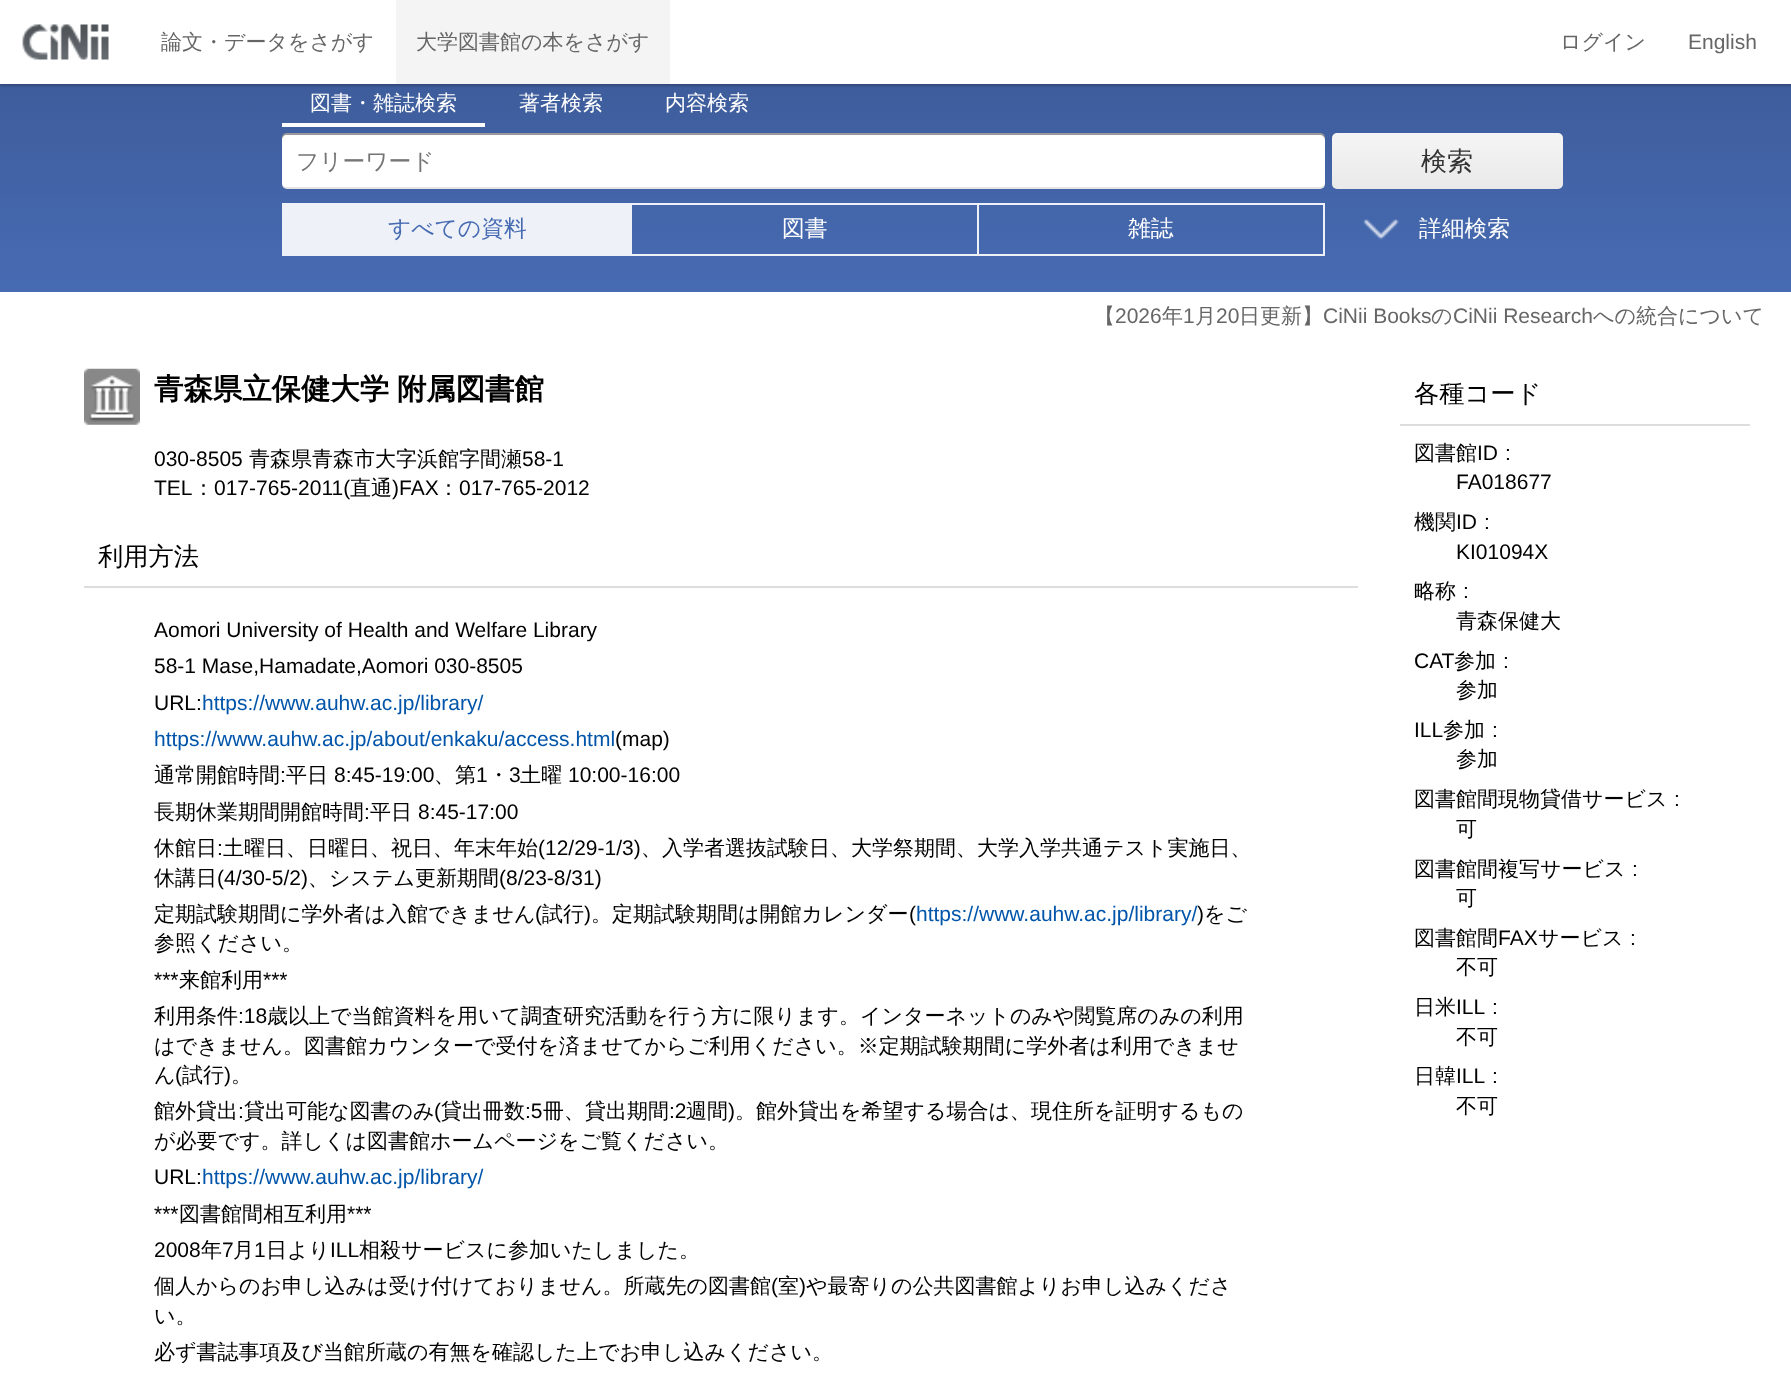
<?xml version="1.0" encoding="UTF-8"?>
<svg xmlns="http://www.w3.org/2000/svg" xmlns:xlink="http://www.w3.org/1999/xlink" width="1791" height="1377">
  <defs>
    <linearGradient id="g1" gradientUnits="userSpaceOnUse" x1="896" y1="59" x2="896" y2="292"><stop offset="0" stop-color="#3d5b99" /><stop offset="1" stop-color="#476bb3" /></linearGradient>
    <linearGradient id="g2" gradientUnits="userSpaceOnUse" x1="1447" y1="133" x2="1447" y2="189"><stop offset="0" stop-color="#f5f5f5" /><stop offset="1" stop-color="#e9e9e9" /></linearGradient>
  </defs>
  <rect width="100%" height="100%" fill="#ffffff" />
  <rect y="84" width="1791" height="208" fill="url(#g1)" />
  <rect y="2" width="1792" height="84" fill="#000000" fill-opacity="0.2" filter="blur(1px)" />
  <rect width="1791" height="84" fill="#ffffff" />
  <image x="22" y="24" width="87" height="36" xlink:href="image1.png" />
  <rect x="396" width="274" height="84" fill="#f4f4f4" />
  <rect x="282" y="123" width="203" height="4" fill="#ffffff" />
  <rect x="282" y="133" width="1043" height="56" rx="5" fill="#ffffff" />
  <path d="M 282 182 v 2 c 0 3 2 5 5 5 h 1033 c 3 0 5 -2 5 -5 v -2 c 0 3 -3 5 -5 5 h -1033 c -3 0 -5 -2 -5 -5 z" fill="#000000" fill-opacity="0.1" />
  <path d="M 287 135 h 1033 c 2 0 5 2 5 5 v -2 c 0 -3 -2 -5 -5 -5 h -1033 c -3 0 -5 2 -5 5 v 2 c 0 -3 2 -5 5 -5 z" fill="#000000" fill-opacity="0.4" />
  <rect x="1332" y="133" width="231" height="56" rx="5" fill="url(#g2)" />
  <rect x="282" y="203" width="350" height="53" fill="#eef2f8" />
  <rect x="632" y="203" width="346" height="2" fill="#eef2f8" />
  <rect x="977" y="203" width="2" height="53" fill="#eef2f8" />
  <rect x="632" y="254" width="346" height="2" fill="#eef2f8" />
  <rect x="978" y="203" width="347" height="2" fill="#eef2f8" />
  <rect x="1323" y="203" width="2" height="53" fill="#eef2f8" />
  <rect x="978" y="254" width="347" height="2" fill="#eef2f8" />
  <image x="1363" y="219" width="36" height="21" xlink:href="image2.png" />
  <image x="84" y="368" width="56" height="57" xlink:href="image3.png" />
  <rect x="84" y="586" width="1274" height="2" fill="#dddddd" />
  <rect x="1400" y="424" width="350" height="2" fill="#dddddd" />
  <text x="161" y="49" style="font-family: WenQuanYi Zen Hei; font-size: 21px; font-weight: 500; fill: #666666">論文・データをさがす</text>
  <text x="416" y="49" style="font-family: WenQuanYi Zen Hei; font-size: 21px; font-weight: 500; fill: #666666">大学図書館の本をさがす</text>
  <text x="1560" y="49" style="font-family: WenQuanYi Zen Hei; font-size: 21px; font-weight: 500; fill: #666666">ログイン</text>
  <text x="1688" y="49" style="font-family: Liberation Sans; font-size: 21px; fill: #666666">English</text>
  <text x="310" y="110" style="font-family: WenQuanYi Zen Hei; font-size: 21px; font-weight: 500; fill: #ffffff">図書・雑誌検索</text>
  <text x="519" y="110" style="font-family: WenQuanYi Zen Hei; font-size: 21px; font-weight: 500; fill: #ffffff">著者検索</text>
  <text x="665" y="110" style="font-family: WenQuanYi Zen Hei; font-size: 21px; font-weight: 500; fill: #ffffff">内容検索</text>
  <text x="296" y="169" style="font-family: WenQuanYi Zen Hei; font-size: 22.75px; font-weight: 500; fill: #757575">フリーワード</text>
  <text x="1421" y="170" style="font-family: WenQuanYi Zen Hei; font-size: 26px; font-weight: 500; fill: #333333">検索</text>
  <text x="388" y="236" style="font-family: WenQuanYi Zen Hei; font-size: 22.75px; font-weight: 500; fill: #476bb3">すべての資料</text>
  <text x="782" y="236" style="font-family: WenQuanYi Zen Hei; font-size: 22.75px; font-weight: 500; fill: #ffffff">図書</text>
  <text x="1128" y="236" style="font-family: WenQuanYi Zen Hei; font-size: 22.75px; font-weight: 500; fill: #ffffff">雑誌</text>
  <text x="1419" y="236" style="font-family: WenQuanYi Zen Hei; font-size: 22.75px; font-weight: 500; fill: #ffffff">詳細検索</text>
  <text x="1094" y="323" style="font-family: WenQuanYi Zen Hei; font-size: 21px; font-weight: 500; fill: #666666">【</text>
  <text x="1115" y="323" style="font-family: Liberation Sans; font-size: 21px; fill: #666666">2026</text>
  <text x="1162" y="323" style="font-family: WenQuanYi Zen Hei; font-size: 21px; font-weight: 500; fill: #666666">年</text>
  <text x="1183" y="323" style="font-family: Liberation Sans; font-size: 21px; fill: #666666">1</text>
  <text x="1195" y="323" style="font-family: WenQuanYi Zen Hei; font-size: 21px; font-weight: 500; fill: #666666">月</text>
  <text x="1216" y="323" style="font-family: Liberation Sans; font-size: 21px; fill: #666666">20</text>
  <text x="1239" y="323" style="font-family: WenQuanYi Zen Hei; font-size: 21px; font-weight: 500; fill: #666666">日更新】</text>
  <text x="1323" y="323" style="font-family: Liberation Sans; font-size: 21px; fill: #666666">CiNii Books</text>
  <text x="1431" y="323" style="font-family: WenQuanYi Zen Hei; font-size: 21px; font-weight: 500; fill: #666666">の</text>
  <text x="1453" y="323" style="font-family: Liberation Sans; font-size: 21px; fill: #666666">CiNii Research</text>
  <text x="1593" y="323" style="font-family: WenQuanYi Zen Hei; font-size: 21px; font-weight: 500; fill: #666666">への統合について</text>
  <text x="154" y="399" word-spacing="-1" style="font-family: WenQuanYi Zen Hei; font-size: 29.4px; font-weight: bold; fill: #000000">青森県立保健大学 附属図書館</text>
  <text x="154" y="466" style="font-family: Liberation Sans; font-size: 21px; fill: #000000">030-8505</text>
  <text x="249" y="466" style="font-family: WenQuanYi Zen Hei; font-size: 21px; font-weight: 500; fill: #000000">青森県青森市大字浜館字間瀬</text>
  <text x="522" y="466" style="font-family: Liberation Sans; font-size: 21px; fill: #000000">58-1</text>
  <text x="154" y="495" style="font-family: Liberation Sans; font-size: 21px; fill: #000000">TEL</text>
  <text x="193" y="495" style="font-family: WenQuanYi Zen Hei; font-size: 21px; font-weight: 500; fill: #000000">：</text>
  <text x="214" y="495" style="font-family: Liberation Sans; font-size: 21px; fill: #000000">017-765-2011(</text>
  <text x="350" y="495" style="font-family: WenQuanYi Zen Hei; font-size: 21px; font-weight: 500; fill: #000000">直通</text>
  <text x="392" y="495" style="font-family: Liberation Sans; font-size: 21px; fill: #000000">)FAX</text>
  <text x="438" y="495" style="font-family: WenQuanYi Zen Hei; font-size: 21px; font-weight: 500; fill: #000000">：</text>
  <text x="459" y="495" style="font-family: Liberation Sans; font-size: 21px; fill: #000000">017-765-2012</text>
  <text x="98" y="565" style="font-family: WenQuanYi Zen Hei; font-size: 25.25px; font-weight: 500; fill: #000000">利用方法</text>
  <text x="154" y="637" style="font-family: Liberation Sans; font-size: 21px; fill: #000000">Aomori University of Health and Welfare Library</text>
  <text x="154" y="673" style="font-family: Liberation Sans; font-size: 21px; fill: #000000">58-1 Mase,Hamadate,Aomori 030-8505</text>
  <text x="154" y="710" style="font-family: Liberation Sans; font-size: 21px; fill: #000000">URL:</text>
  <text x="202" y="710" style="font-family: Liberation Sans; font-size: 21px; fill: #0055aa">https://www.auhw.ac.jp/library/</text>
  <text x="154" y="746" style="font-family: Liberation Sans; font-size: 21px; fill: #0055aa">https://www.auhw.ac.jp/about/enkaku/access.html</text>
  <text x="615" y="746" style="font-family: Liberation Sans; font-size: 21px; fill: #000000">(map)</text>
  <text x="154" y="782" style="font-family: WenQuanYi Zen Hei; font-size: 21px; font-weight: 500; fill: #000000">通常開館時間</text>
  <text x="280" y="782" style="font-family: Liberation Sans; font-size: 21px; fill: #000000">:</text>
  <text x="286" y="782" style="font-family: WenQuanYi Zen Hei; font-size: 21px; font-weight: 500; fill: #000000">平日</text>
  <text x="334" y="782" style="font-family: Liberation Sans; font-size: 21px; fill: #000000">8:45-19:00</text>
  <text x="434" y="782" style="font-family: WenQuanYi Zen Hei; font-size: 21px; font-weight: 500; fill: #000000">、第</text>
  <text x="476" y="782" style="font-family: Liberation Sans; font-size: 21px; fill: #000000">1</text>
  <text x="488" y="782" style="font-family: WenQuanYi Zen Hei; font-size: 21px; font-weight: 500; fill: #000000">・</text>
  <text x="509" y="782" style="font-family: Liberation Sans; font-size: 21px; fill: #000000">3</text>
  <text x="520" y="782" style="font-family: WenQuanYi Zen Hei; font-size: 21px; font-weight: 500; fill: #000000">土曜</text>
  <text x="568" y="782" style="font-family: Liberation Sans; font-size: 21px; fill: #000000">10:00-16:00</text>
  <text x="154" y="819" style="font-family: WenQuanYi Zen Hei; font-size: 21px; font-weight: 500; fill: #000000">長期休業期間開館時間</text>
  <text x="364" y="819" style="font-family: Liberation Sans; font-size: 21px; fill: #000000">:</text>
  <text x="370" y="819" style="font-family: WenQuanYi Zen Hei; font-size: 21px; font-weight: 500; fill: #000000">平日</text>
  <text x="418" y="819" style="font-family: Liberation Sans; font-size: 21px; fill: #000000">8:45-17:00</text>
  <text x="154" y="855" style="font-family: WenQuanYi Zen Hei; font-size: 21px; font-weight: 500; fill: #000000">休館日</text>
  <text x="217" y="855" style="font-family: Liberation Sans; font-size: 21px; fill: #000000">:</text>
  <text x="223" y="855" style="font-family: WenQuanYi Zen Hei; font-size: 21px; font-weight: 500; fill: #000000">土曜日、日曜日、祝日、年末年始</text>
  <text x="538" y="855" style="font-family: Liberation Sans; font-size: 21px; fill: #000000">(12/29-1/3)</text>
  <text x="641" y="855" style="font-family: WenQuanYi Zen Hei; font-size: 21px; font-weight: 500; fill: #000000">、入学者選抜試験日、大学祭期間、大学入学共通テスト実施日、</text>
  <text x="154" y="885" style="font-family: WenQuanYi Zen Hei; font-size: 21px; font-weight: 500; fill: #000000">休講日</text>
  <text x="217" y="885" style="font-family: Liberation Sans; font-size: 21px; fill: #000000">(4/30-5/2)</text>
  <text x="308" y="885" style="font-family: WenQuanYi Zen Hei; font-size: 21px; font-weight: 500; fill: #000000">、システム更新期間</text>
  <text x="499" y="885" style="font-family: Liberation Sans; font-size: 21px; fill: #000000">(8/23-8/31)</text>
  <text x="154" y="921" style="font-family: WenQuanYi Zen Hei; font-size: 21px; font-weight: 500; fill: #000000">定期試験期間に学外者は入館できません</text>
  <text x="535" y="921" style="font-family: Liberation Sans; font-size: 21px; fill: #000000">(</text>
  <text x="542" y="921" style="font-family: WenQuanYi Zen Hei; font-size: 21px; font-weight: 500; fill: #000000">試行</text>
  <text x="584" y="921" style="font-family: Liberation Sans; font-size: 21px; fill: #000000">)</text>
  <text x="591" y="921" style="font-family: WenQuanYi Zen Hei; font-size: 21px; font-weight: 500; fill: #000000">。定期試験期間は開館カレンダー</text>
  <text x="909" y="921" style="font-family: Liberation Sans; font-size: 21px; fill: #000000">(</text>
  <text x="916" y="921" style="font-family: Liberation Sans; font-size: 21px; fill: #0055aa">https://www.auhw.ac.jp/library/</text>
  <text x="1197" y="921" style="font-family: Liberation Sans; font-size: 21px; fill: #000000">)</text>
  <text x="1204" y="921" style="font-family: WenQuanYi Zen Hei; font-size: 21px; font-weight: 500; fill: #000000">をご</text>
  <text x="154" y="950" style="font-family: WenQuanYi Zen Hei; font-size: 21px; font-weight: 500; fill: #000000">参照ください。</text>
  <text x="154" y="987" style="font-family: Liberation Sans; font-size: 21px; fill: #000000">***</text>
  <text x="179" y="987" style="font-family: WenQuanYi Zen Hei; font-size: 21px; font-weight: 500; fill: #000000">来館利用</text>
  <text x="263" y="987" style="font-family: Liberation Sans; font-size: 21px; fill: #000000">***</text>
  <text x="154" y="1023" style="font-family: WenQuanYi Zen Hei; font-size: 21px; font-weight: 500; fill: #000000">利用条件</text>
  <text x="238" y="1023" style="font-family: Liberation Sans; font-size: 21px; fill: #000000">:18</text>
  <text x="267" y="1023" style="font-family: WenQuanYi Zen Hei; font-size: 21px; font-weight: 500; fill: #000000">歳以上で当館資料を用いて調査研究活動を行う方に限ります。インターネットのみや閲覧席のみの利用</text>
  <text x="154" y="1053" style="font-family: WenQuanYi Zen Hei; font-size: 21px; font-weight: 500; fill: #000000">はできません。図書館カウンターで受付を済ませてからご利用ください。※定期試験期間に学外者は利用できませ</text>
  <text x="154" y="1082" style="font-family: WenQuanYi Zen Hei; font-size: 21px; font-weight: 500; fill: #000000">ん</text>
  <text x="175" y="1082" style="font-family: Liberation Sans; font-size: 21px; fill: #000000">(</text>
  <text x="182" y="1082" style="font-family: WenQuanYi Zen Hei; font-size: 21px; font-weight: 500; fill: #000000">試行</text>
  <text x="224" y="1082" style="font-family: Liberation Sans; font-size: 21px; fill: #000000">)</text>
  <text x="231" y="1082" style="font-family: WenQuanYi Zen Hei; font-size: 21px; font-weight: 500; fill: #000000">。</text>
  <text x="154" y="1118" style="font-family: WenQuanYi Zen Hei; font-size: 21px; font-weight: 500; fill: #000000">館外貸出</text>
  <text x="238" y="1118" style="font-family: Liberation Sans; font-size: 21px; fill: #000000">:</text>
  <text x="244" y="1118" style="font-family: WenQuanYi Zen Hei; font-size: 21px; font-weight: 500; fill: #000000">貸出可能な図書のみ</text>
  <text x="434" y="1118" style="font-family: Liberation Sans; font-size: 21px; fill: #000000">(</text>
  <text x="441" y="1118" style="font-family: WenQuanYi Zen Hei; font-size: 21px; font-weight: 500; fill: #000000">貸出冊数</text>
  <text x="525" y="1118" style="font-family: Liberation Sans; font-size: 21px; fill: #000000">:5</text>
  <text x="543" y="1118" style="font-family: WenQuanYi Zen Hei; font-size: 21px; font-weight: 500; fill: #000000">冊、貸出期間</text>
  <text x="669" y="1118" style="font-family: Liberation Sans; font-size: 21px; fill: #000000">:2</text>
  <text x="686" y="1118" style="font-family: WenQuanYi Zen Hei; font-size: 21px; font-weight: 500; fill: #000000">週間</text>
  <text x="728" y="1118" style="font-family: Liberation Sans; font-size: 21px; fill: #000000">)</text>
  <text x="735" y="1118" style="font-family: WenQuanYi Zen Hei; font-size: 21px; font-weight: 500; fill: #000000">。館外貸出を希望する場合は、現住所を証明するもの</text>
  <text x="154" y="1148" style="font-family: WenQuanYi Zen Hei; font-size: 21px; font-weight: 500; fill: #000000">が必要です。詳しくは図書館ホームページをご覧ください。</text>
  <text x="154" y="1184" style="font-family: Liberation Sans; font-size: 21px; fill: #000000">URL:</text>
  <text x="202" y="1184" style="font-family: Liberation Sans; font-size: 21px; fill: #0055aa">https://www.auhw.ac.jp/library/</text>
  <text x="154" y="1221" style="font-family: Liberation Sans; font-size: 21px; fill: #000000">***</text>
  <text x="179" y="1221" style="font-family: WenQuanYi Zen Hei; font-size: 21px; font-weight: 500; fill: #000000">図書館間相互利用</text>
  <text x="347" y="1221" style="font-family: Liberation Sans; font-size: 21px; fill: #000000">***</text>
  <text x="154" y="1257" style="font-family: Liberation Sans; font-size: 21px; fill: #000000">2008</text>
  <text x="201" y="1257" style="font-family: WenQuanYi Zen Hei; font-size: 21px; font-weight: 500; fill: #000000">年</text>
  <text x="222" y="1257" style="font-family: Liberation Sans; font-size: 21px; fill: #000000">7</text>
  <text x="233" y="1257" style="font-family: WenQuanYi Zen Hei; font-size: 21px; font-weight: 500; fill: #000000">月</text>
  <text x="254" y="1257" style="font-family: Liberation Sans; font-size: 21px; fill: #000000">1</text>
  <text x="266" y="1257" style="font-family: WenQuanYi Zen Hei; font-size: 21px; font-weight: 500; fill: #000000">日より</text>
  <text x="330" y="1257" style="font-family: Liberation Sans; font-size: 21px; fill: #000000">ILL</text>
  <text x="359" y="1257" style="font-family: WenQuanYi Zen Hei; font-size: 21px; font-weight: 500; fill: #000000">相殺サービスに参加いたしました。</text>
  <text x="154" y="1293" style="font-family: WenQuanYi Zen Hei; font-size: 21px; font-weight: 500; fill: #000000">個人からのお申し込みは受け付けておりません。所蔵先の図書館</text>
  <text x="771" y="1293" style="font-family: Liberation Sans; font-size: 21px; fill: #000000">(</text>
  <text x="778" y="1293" style="font-family: WenQuanYi Zen Hei; font-size: 21px; font-weight: 500; fill: #000000">室</text>
  <text x="799" y="1293" style="font-family: Liberation Sans; font-size: 21px; fill: #000000">)</text>
  <text x="806" y="1293" style="font-family: WenQuanYi Zen Hei; font-size: 21px; font-weight: 500; fill: #000000">や最寄りの公共図書館よりお申し込みくださ</text>
  <text x="154" y="1323" style="font-family: WenQuanYi Zen Hei; font-size: 21px; font-weight: 500; fill: #000000">い。</text>
  <text x="154" y="1359" style="font-family: WenQuanYi Zen Hei; font-size: 21px; font-weight: 500; fill: #000000">必ず書誌事項及び当館所蔵の有無を確認した上でお申し込みください。</text>
  <text x="1414" y="402" style="font-family: WenQuanYi Zen Hei; font-size: 25.25px; font-weight: 500; fill: #000000">各種コード</text>
  <text x="1414" y="460" style="font-family: WenQuanYi Zen Hei; font-size: 21px; font-weight: 500; fill: #000000">図書館</text>
  <text x="1477" y="460" style="font-family: Liberation Sans; font-size: 21px; fill: #000000">ID</text>
  <text x="1505" y="460" style="font-family: Liberation Sans; font-size: 21px; fill: #000000">:</text>
  <text x="1456" y="489" style="font-family: Liberation Sans; font-size: 21px; fill: #000000">FA018677</text>
  <text x="1414" y="529" style="font-family: WenQuanYi Zen Hei; font-size: 21px; font-weight: 500; fill: #000000">機関</text>
  <text x="1456" y="529" style="font-family: Liberation Sans; font-size: 21px; fill: #000000">ID</text>
  <text x="1484" y="529" style="font-family: Liberation Sans; font-size: 21px; fill: #000000">:</text>
  <text x="1456" y="559" style="font-family: Liberation Sans; font-size: 21px; fill: #000000">KI01094X</text>
  <text x="1414" y="598" style="font-family: WenQuanYi Zen Hei; font-size: 21px; font-weight: 500; fill: #000000">略称</text>
  <text x="1463" y="598" style="font-family: Liberation Sans; font-size: 21px; fill: #000000">:</text>
  <text x="1456" y="628" style="font-family: WenQuanYi Zen Hei; font-size: 21px; font-weight: 500; fill: #000000">青森保健大</text>
  <text x="1414" y="668" style="font-family: Liberation Sans; font-size: 21px; fill: #000000">CAT</text>
  <text x="1454" y="668" style="font-family: WenQuanYi Zen Hei; font-size: 21px; font-weight: 500; fill: #000000">参加</text>
  <text x="1503" y="668" style="font-family: Liberation Sans; font-size: 21px; fill: #000000">:</text>
  <text x="1456" y="697" style="font-family: WenQuanYi Zen Hei; font-size: 21px; font-weight: 500; fill: #000000">参加</text>
  <text x="1414" y="737" style="font-family: Liberation Sans; font-size: 21px; fill: #000000">ILL</text>
  <text x="1443" y="737" style="font-family: WenQuanYi Zen Hei; font-size: 21px; font-weight: 500; fill: #000000">参加</text>
  <text x="1492" y="737" style="font-family: Liberation Sans; font-size: 21px; fill: #000000">:</text>
  <text x="1456" y="766" style="font-family: WenQuanYi Zen Hei; font-size: 21px; font-weight: 500; fill: #000000">参加</text>
  <text x="1414" y="806" style="font-family: WenQuanYi Zen Hei; font-size: 21px; font-weight: 500; fill: #000000">図書館間現物貸借サービス</text>
  <text x="1674" y="806" style="font-family: Liberation Sans; font-size: 21px; fill: #000000">:</text>
  <text x="1456" y="836" style="font-family: WenQuanYi Zen Hei; font-size: 21px; font-weight: 500; fill: #000000">可</text>
  <text x="1414" y="876" style="font-family: WenQuanYi Zen Hei; font-size: 21px; font-weight: 500; fill: #000000">図書館間複写サービス</text>
  <text x="1632" y="876" style="font-family: Liberation Sans; font-size: 21px; fill: #000000">:</text>
  <text x="1456" y="905" style="font-family: WenQuanYi Zen Hei; font-size: 21px; font-weight: 500; fill: #000000">可</text>
  <text x="1414" y="945" style="font-family: WenQuanYi Zen Hei; font-size: 21px; font-weight: 500; fill: #000000">図書館間</text>
  <text x="1498" y="945" style="font-family: Liberation Sans; font-size: 21px; fill: #000000">FAX</text>
  <text x="1538" y="945" style="font-family: WenQuanYi Zen Hei; font-size: 21px; font-weight: 500; fill: #000000">サービス</text>
  <text x="1630" y="945" style="font-family: Liberation Sans; font-size: 21px; fill: #000000">:</text>
  <text x="1456" y="974" style="font-family: WenQuanYi Zen Hei; font-size: 21px; font-weight: 500; fill: #000000">不可</text>
  <text x="1414" y="1014" style="font-family: WenQuanYi Zen Hei; font-size: 21px; font-weight: 500; fill: #000000">日米</text>
  <text x="1456" y="1014" style="font-family: Liberation Sans; font-size: 21px; fill: #000000">ILL</text>
  <text x="1492" y="1014" style="font-family: Liberation Sans; font-size: 21px; fill: #000000">:</text>
  <text x="1456" y="1044" style="font-family: WenQuanYi Zen Hei; font-size: 21px; font-weight: 500; fill: #000000">不可</text>
  <text x="1414" y="1083" style="font-family: WenQuanYi Zen Hei; font-size: 21px; font-weight: 500; fill: #000000">日韓</text>
  <text x="1456" y="1083" style="font-family: Liberation Sans; font-size: 21px; fill: #000000">ILL</text>
  <text x="1492" y="1083" style="font-family: Liberation Sans; font-size: 21px; fill: #000000">:</text>
  <text x="1456" y="1113" style="font-family: WenQuanYi Zen Hei; font-size: 21px; font-weight: 500; fill: #000000">不可</text>
</svg>
